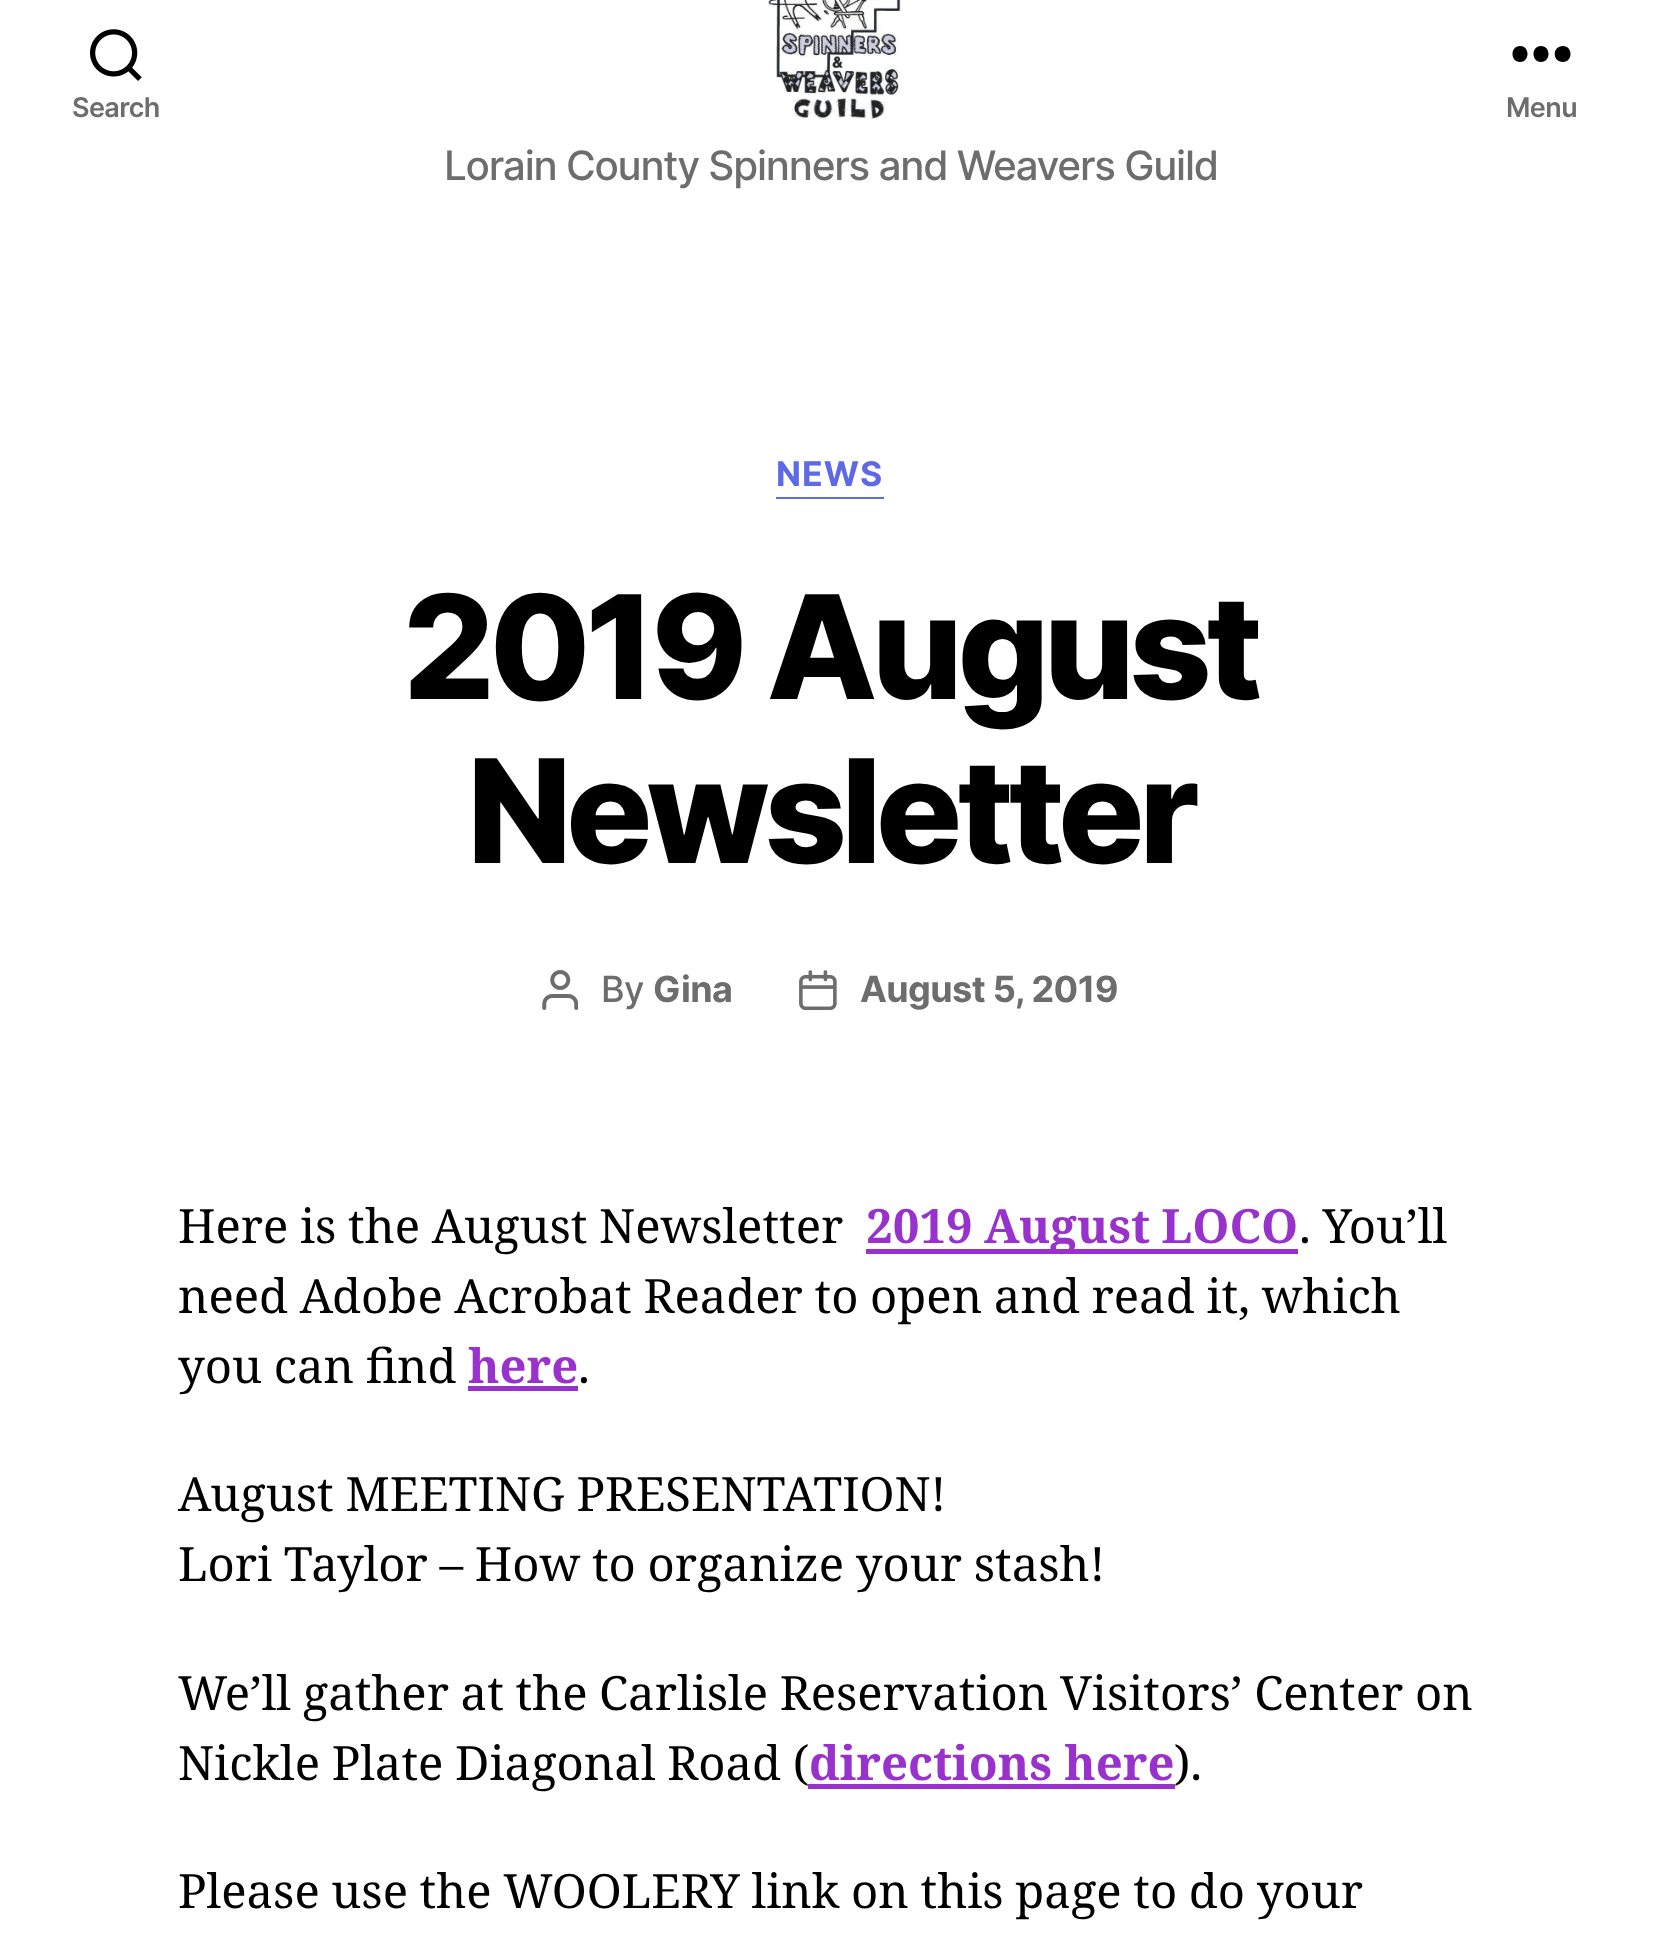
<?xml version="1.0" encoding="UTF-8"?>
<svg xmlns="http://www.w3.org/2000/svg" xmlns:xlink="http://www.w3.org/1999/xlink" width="1659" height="1945">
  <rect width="100%" height="100%" fill="#ffffff" />
  <image x="90" y="29" width="52" height="52" xlink:href="image1.png" />
  <path d="M 1520 62 c -10 0 -10 -16 0 -16 c 10 0 10 16 0 16 z m 21 0 c -10 0 -10 -16 0 -16 c 10 0 10 16 0 16 z m 22 0 c -11 0 -11 -16 0 -16 c 10 0 10 16 0 16 z" fill="#000000" fill-rule="evenodd" />
  <image x="767" y="0" width="135" height="119" xlink:href="image2.png" />
  <rect x="776" y="497" width="108" height="2" fill="#5e69e8" />
  <image x="542" y="970" width="36" height="40" xlink:href="image3.png" />
  <image x="799" y="970" width="38" height="40" xlink:href="image4.png" />
  <rect x="866" y="1249" width="432" height="5" fill="#9932cc" />
  <rect x="468" y="1386" width="110" height="5" fill="#9932cc" />
  <rect x="808" y="1784" width="367" height="5" fill="#9932cc" />
  <text x="72" y="117" style="font-family: Inter; font-size: 27px; font-weight: 600; letter-spacing: -0.6px; fill: #6d6d6d">Search</text>
  <text x="1506" y="117" style="font-family: Inter; font-size: 27px; font-weight: 600; letter-spacing: -0.6px; fill: #6d6d6d">Menu</text>
  <text x="444" y="180" style="font-family: Inter; font-size: 40.5px; font-weight: 500; letter-spacing: -1.25px; fill: #6d6d6d">Lorain County Spinners and Weavers Guild</text>
  <text x="776" y="486" style="font-family: Inter; font-size: 34px; font-weight: bold; letter-spacing: 1px; fill: #5e69e8">NEWS</text>
  <text x="403" y="699" style="font-family: Inter; font-size: 144px; font-weight: 800; letter-spacing: -6px; fill: #000000">2019 August</text>
  <text x="467" y="863" style="font-family: Inter; font-size: 144px; font-weight: 800; letter-spacing: -6px; fill: #000000">Newsletter</text>
  <text x="601" y="1002" style="font-family: Inter; font-size: 36px; font-weight: 500; letter-spacing: -0.6px; fill: #6d6d6d">By</text>
  <text x="653" y="1002" style="font-family: Inter; font-size: 36px; font-weight: bold; letter-spacing: -0.6px; fill: #6d6d6d">Gina</text>
  <text x="860" y="1002" style="font-family: Inter; font-size: 36px; font-weight: bold; letter-spacing: -0.6px; fill: #6d6d6d">August 5, 2019</text>
  <text x="178" y="1243" word-spacing="-0.6" style="font-family: Noto Serif; font-size: 47.25px; fill: #000000">Here is the August Newsletter</text>
  <text x="866" y="1243" word-spacing="-1" style="font-family: Noto Serif; font-size: 47.25px; font-weight: bold; fill: #9932cc">2019 August LOCO</text>
  <text x="1299" y="1243" word-spacing="-0.6" style="font-family: Noto Serif; font-size: 47.25px; fill: #000000">. You’ll</text>
  <text x="178" y="1313" word-spacing="-0.6" style="font-family: Noto Serif; font-size: 47.25px; fill: #000000">need Adobe Acrobat Reader to open and read it, which</text>
  <text x="178" y="1383" word-spacing="-0.6" style="font-family: Noto Serif; font-size: 47.25px; fill: #000000">you can find</text>
  <text x="468" y="1383" style="font-family: Noto Serif; font-size: 47.25px; font-weight: bold; fill: #9932cc">here</text>
  <text x="578" y="1383" style="font-family: Noto Serif; font-size: 47.25px; fill: #000000">.</text>
  <text x="178" y="1511" word-spacing="-0.6" style="font-family: Noto Serif; font-size: 47.25px; fill: #000000">August MEETING PRESENTATION!</text>
  <text x="178" y="1581" word-spacing="-0.6" style="font-family: Noto Serif; font-size: 47.25px; fill: #000000">Lori Taylor – How to organize your stash!</text>
  <text x="178" y="1710" word-spacing="-0.6" style="font-family: Noto Serif; font-size: 47.25px; fill: #000000">We’ll gather at the Carlisle Reservation Visitors’ Center on</text>
  <text x="178" y="1780" word-spacing="-0.6" style="font-family: Noto Serif; font-size: 47.25px; fill: #000000">Nickle Plate Diagonal Road (</text>
  <text x="809" y="1780" style="font-family: Noto Serif; font-size: 47.25px; font-weight: bold; fill: #9932cc">directions here</text>
  <text x="1174" y="1780" style="font-family: Noto Serif; font-size: 47.25px; fill: #000000">).</text>
  <text x="178" y="1908" word-spacing="-0.6" style="font-family: Noto Serif; font-size: 47.25px; fill: #000000">Please use the WOOLERY link on this page to do your</text>
</svg>
